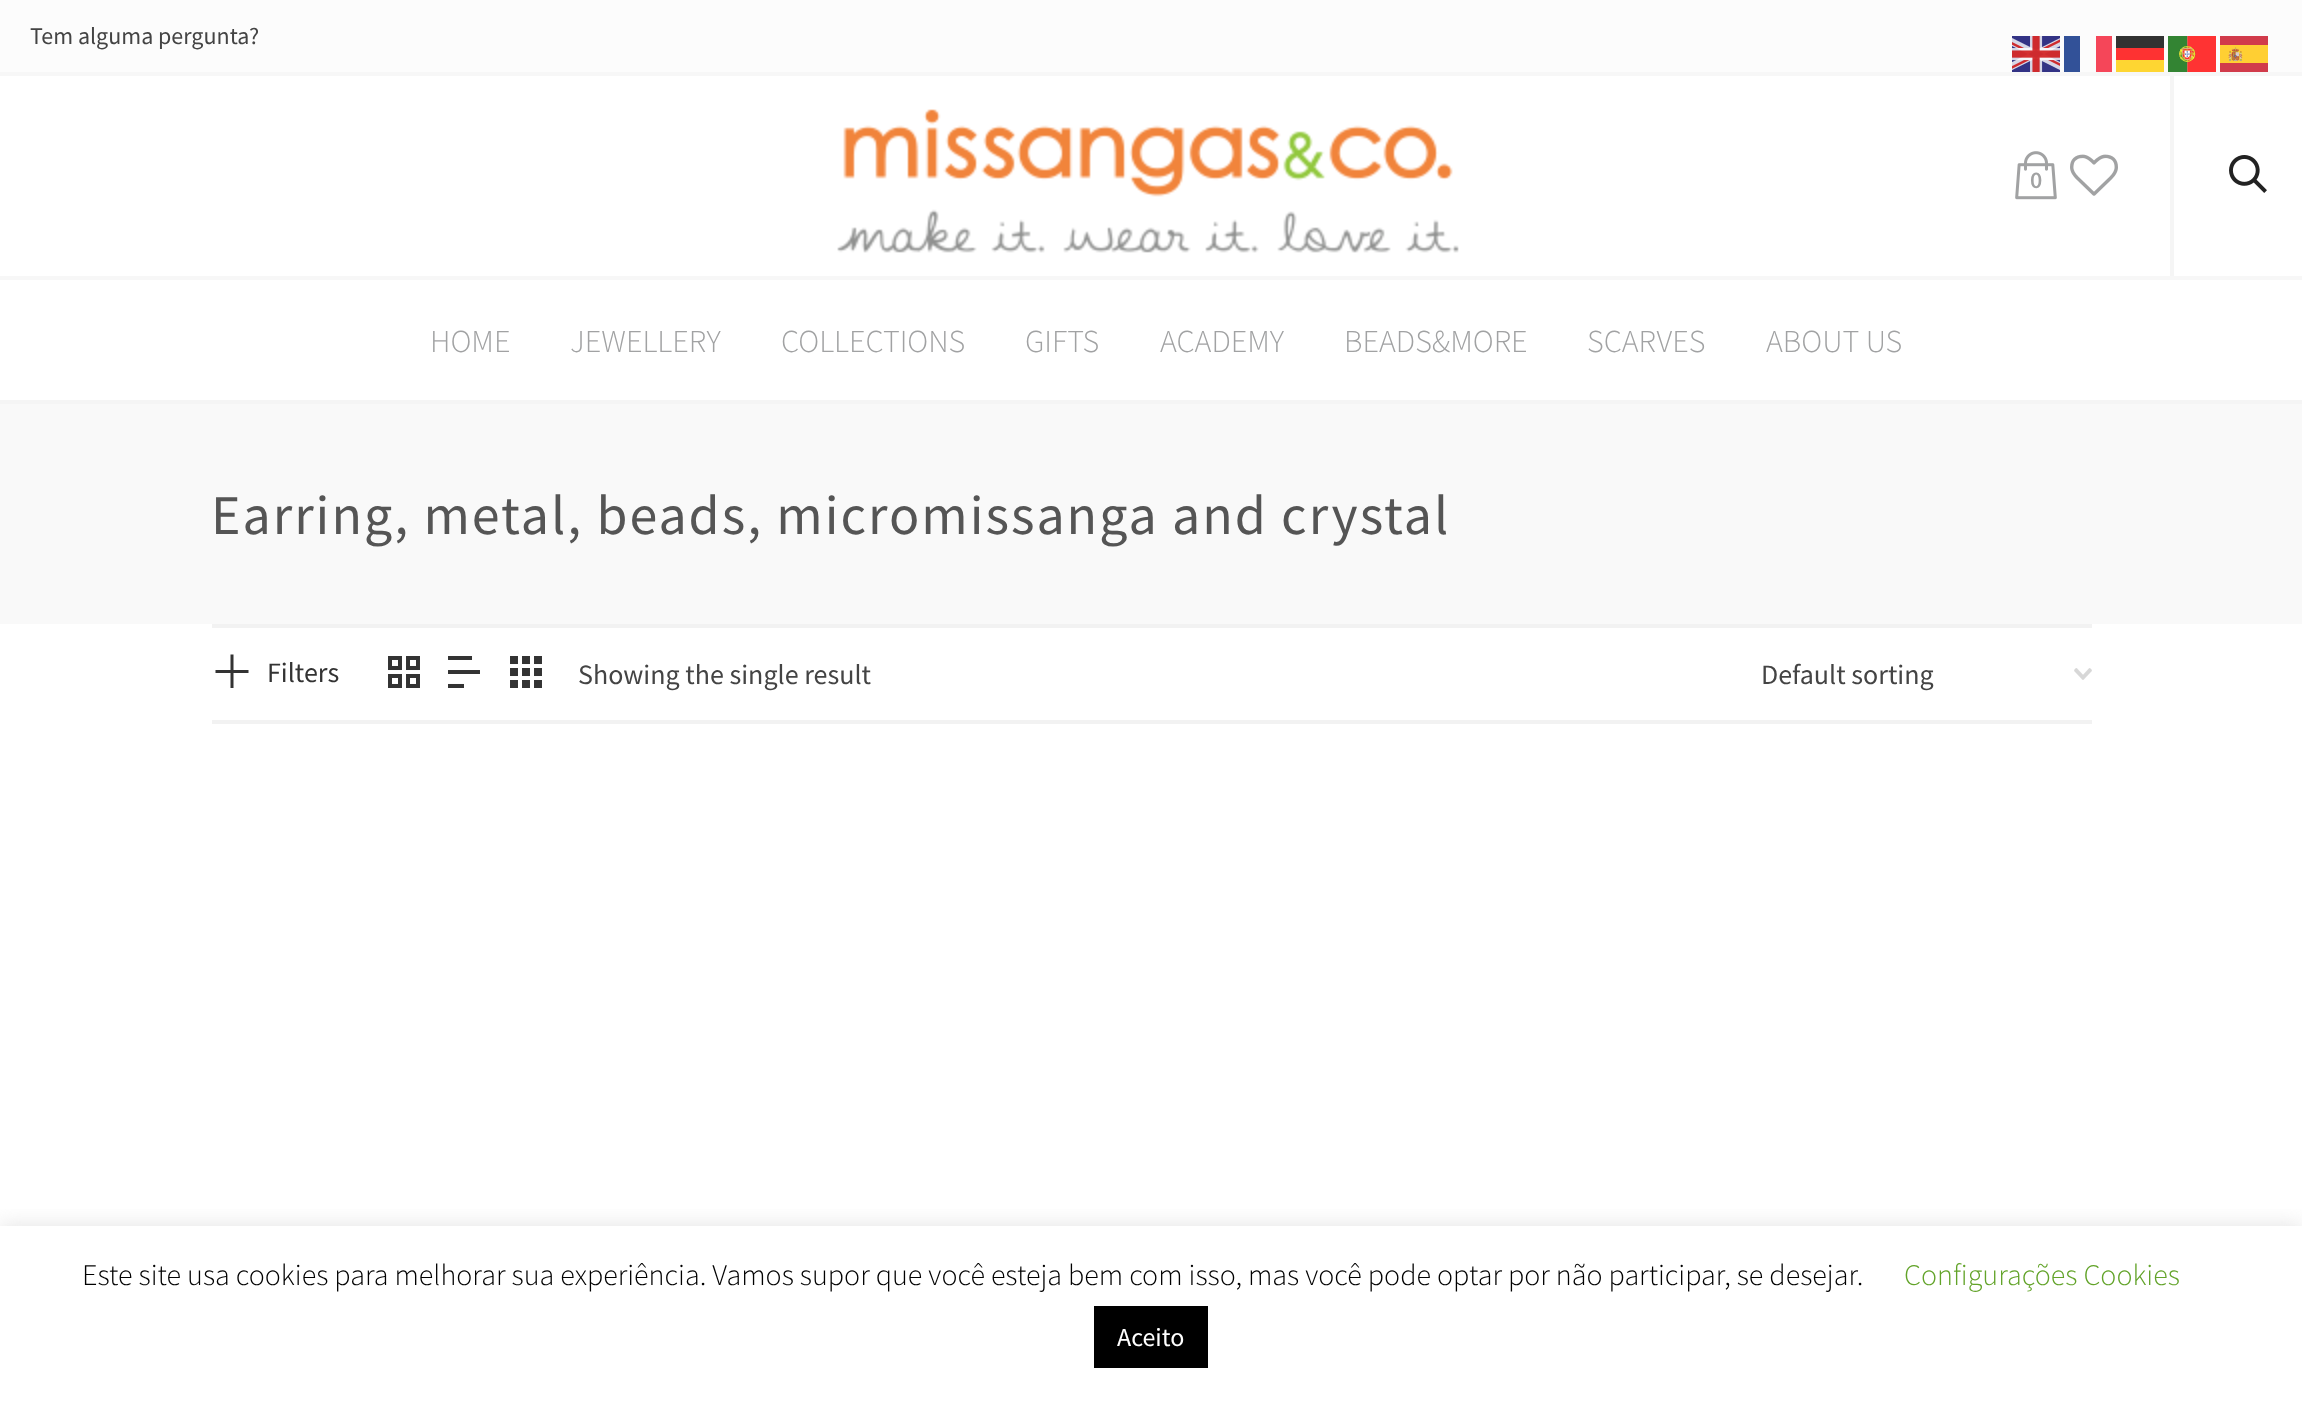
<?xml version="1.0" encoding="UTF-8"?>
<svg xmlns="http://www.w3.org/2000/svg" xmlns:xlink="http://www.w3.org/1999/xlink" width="2302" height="1401">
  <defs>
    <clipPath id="clip1"><rect x="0" y="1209" width="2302" height="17" /></clipPath>
  </defs>
  <rect width="100%" height="100%" fill="#ffffff" />
  <rect width="2302" height="72" fill="#fcfcfc" />
  <rect y="72" width="2302" height="4" fill="#f7f7f7" />
  <rect y="400" width="2302" height="4" fill="#f5f5f5" />
  <image x="837" y="109" width="622" height="144" xlink:href="image1.png" />
  <image x="2015" y="151" width="42" height="49" xlink:href="image2.png" />
  <image x="2070" y="154" width="48" height="42" xlink:href="image3.png" />
  <rect x="2170" y="76" width="4" height="200" fill="#f5f5f5" />
  <image x="2229" y="155" width="38" height="38" xlink:href="image4.png" />
  <rect y="276" width="2302" height="4" fill="#f7f7f7" />
  <rect y="404" width="2302" height="220" fill="#f9f9f9" />
  <rect x="212" y="624" width="1880" height="4" fill="#f2f2f2" />
  <rect x="212" y="720" width="1880" height="4" fill="#f2f2f2" />
  <path d="M 233.5 654.5 h -3 v 15.5 h -15 v 3 h 15 v 15 h 3 v -15 h 15 v -3 h -15 z" fill="#333333" />
  <image x="388" y="656" width="32" height="32" xlink:href="image5.png" />
  <image x="448" y="656" width="32" height="32" xlink:href="image6.png" />
  <image x="510" y="656" width="32" height="32" xlink:href="image7.png" />
  <image x="2074" y="668" width="18" height="12" xlink:href="image8.png" />
  <image x="2012" y="36" width="48" height="36" xlink:href="image9.png" />
  <rect x="2064" y="36" width="16" height="36" fill="#325198" />
  <rect x="2096" y="36" width="16" height="36" fill="#f54659" />
  <rect x="2116" y="36" width="48" height="12" fill="#323232" />
  <image x="2168" y="36" width="48" height="36" xlink:href="image10.png" />
  <image x="2220" y="36" width="48" height="36" xlink:href="image11.png" />
  <rect x="2116" y="48" width="48" height="12" fill="#fe3232" />
  <rect x="2116" y="60" width="48" height="12" fill="#fed632" />
  <g clip-path="url(#clip1)">
    <rect y="1224" width="2302" height="176" fill="#acabab" fill-opacity="0.3" filter="blur(10px)" />
  </g>
  <rect x="1094" y="1306" width="114" height="62" fill="#000000" />
  <text x="30" y="44" style="font-family: Source Sans Pro; font-size: 24px; fill: #444444">Tem alguma pergunta?</text>
  <text x="2030" y="188" style="font-family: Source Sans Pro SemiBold; font-size: 24px; font-weight: 600; fill: #a1a2a3">0</text>
  <text x="430" y="352" style="font-family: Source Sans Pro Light; font-size: 32px; font-weight: 300; fill: #a1a2a3">HOME</text>
  <text x="570" y="352" style="font-family: Source Sans Pro Light; font-size: 32px; font-weight: 300; fill: #a1a2a3">JEWELLERY</text>
  <text x="781" y="352" style="font-family: Source Sans Pro Light; font-size: 32px; font-weight: 300; fill: #a1a2a3">COLLECTIONS</text>
  <text x="1025" y="352" style="font-family: Source Sans Pro Light; font-size: 32px; font-weight: 300; fill: #a1a2a3">GIFTS</text>
  <text x="1160" y="352" style="font-family: Source Sans Pro Light; font-size: 32px; font-weight: 300; fill: #a1a2a3">ACADEMY</text>
  <text x="1344" y="352" style="font-family: Source Sans Pro Light; font-size: 32px; font-weight: 300; fill: #a1a2a3">BEADS&amp;MORE</text>
  <text x="1587" y="352" style="font-family: Source Sans Pro Light; font-size: 32px; font-weight: 300; fill: #a1a2a3">SCARVES</text>
  <text x="1766" y="352" style="font-family: Source Sans Pro Light; font-size: 32px; font-weight: 300; fill: #a1a2a3">ABOUT US</text>
  <text x="211" y="534" style="font-family: Source Sans Pro; font-size: 56px; letter-spacing: 2px; fill: #555555">Earring, metal, beads, micromissanga and crystal</text>
  <text x="267" y="682" style="font-family: Source Sans Pro; font-size: 28px; fill: #333333">Filters</text>
  <text x="578" y="684" style="font-family: Source Sans Pro; font-size: 28px; fill: #444444">Showing the single result</text>
  <text x="1761" y="684" style="font-family: Source Sans Pro; font-size: 28px; fill: #444444">Default sorting</text>
  <text x="82" y="1285" style="font-family: Source Sans Pro Light; font-size: 30px; font-weight: 300; fill: #000000">Este site usa cookies para melhorar sua experiência. Vamos supor que você esteja bem com isso, mas você pode optar por não participar, se desejar.</text>
  <text x="1904" y="1285" style="font-family: Source Sans Pro Light; font-size: 30px; font-weight: 300; fill: #62a329">Configurações Cookies</text>
  <text x="1117" y="1346" style="font-family: Source Sans Pro; font-size: 26px; fill: #ffffff">Aceito</text>
</svg>
